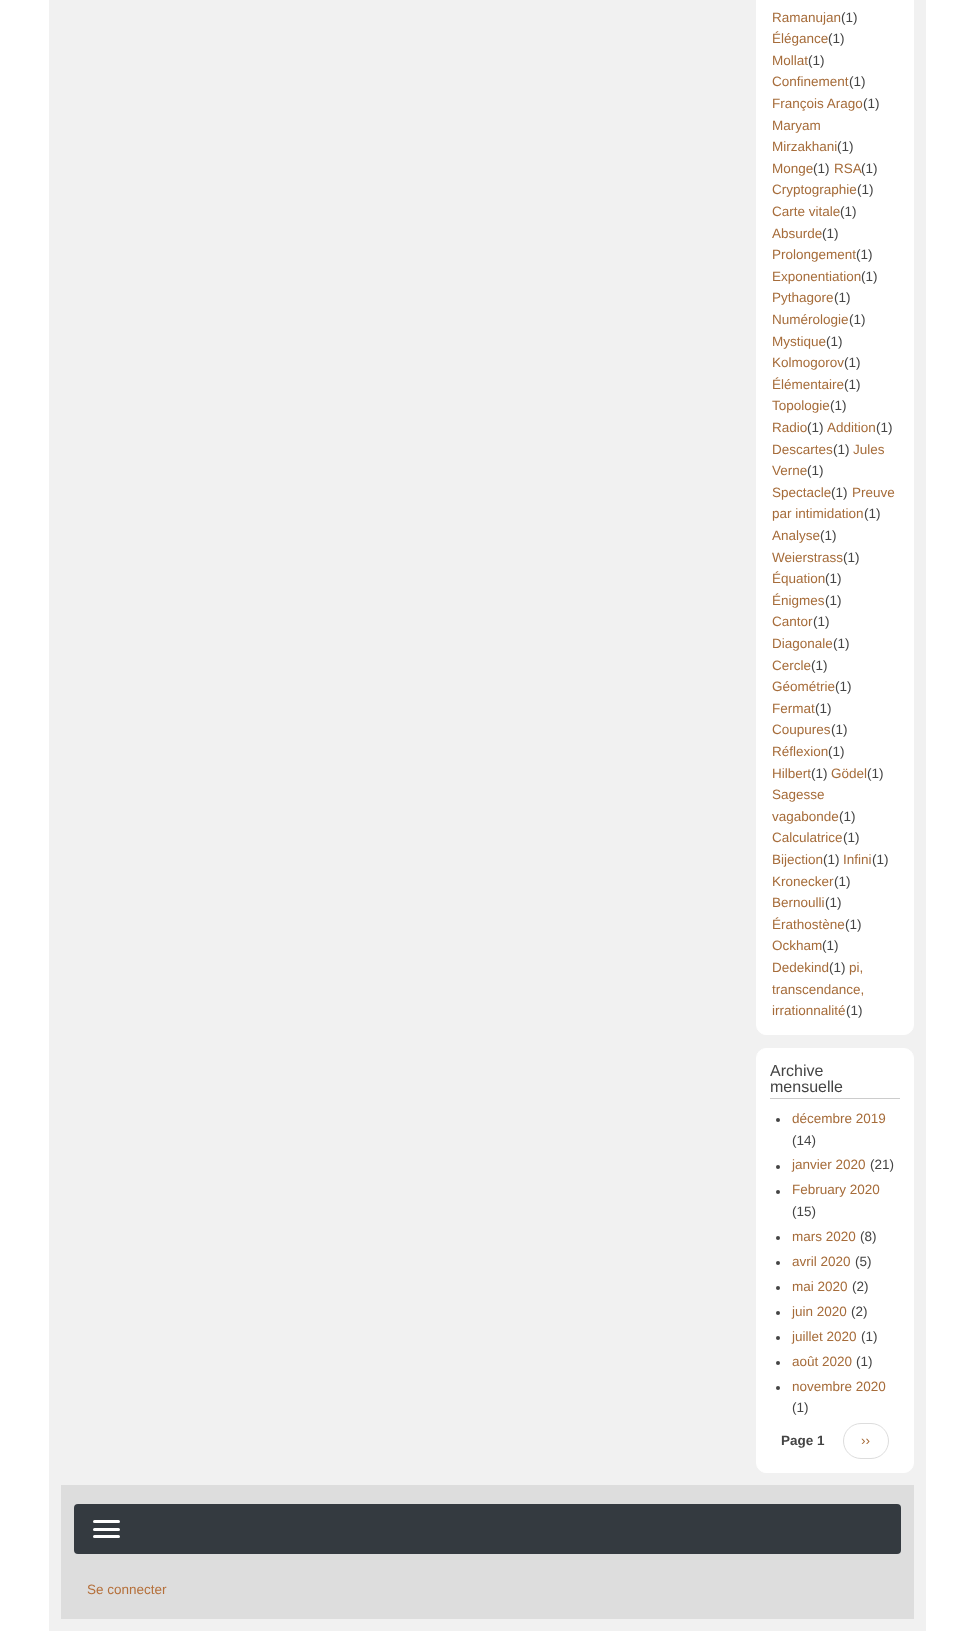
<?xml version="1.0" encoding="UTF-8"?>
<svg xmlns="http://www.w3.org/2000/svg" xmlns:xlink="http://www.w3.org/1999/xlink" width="975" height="1648">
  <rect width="100%" height="100%" fill="#ffffff" />
  <rect x="49" width="877" height="1631" fill="#f1f1f1" />
  <rect x="756.5" y="-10.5" width="157" height="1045" rx="9.5" fill="#ffffff" stroke="#ffffff" />
  <rect x="756.5" y="1048.5" width="157" height="424" rx="9.5" fill="#ffffff" stroke="#ffffff" />
  <rect x="770" y="1098" width="130" height="1" fill="#cccccc" />
  <circle cx="778" cy="1120" r="2" fill="#444444" />
  <circle cx="778" cy="1167" r="2" fill="#444444" />
  <circle cx="778" cy="1192" r="2" fill="#444444" />
  <circle cx="778" cy="1238" r="2" fill="#444444" />
  <circle cx="778" cy="1263" r="2" fill="#444444" />
  <circle cx="778" cy="1288" r="2" fill="#444444" />
  <circle cx="778" cy="1313" r="2" fill="#444444" />
  <circle cx="778" cy="1338" r="2" fill="#444444" />
  <circle cx="778" cy="1363" r="2" fill="#444444" />
  <circle cx="778" cy="1388" r="2" fill="#444444" />
  <rect x="843.5" y="1423.5" width="45" height="35" rx="17.5" fill="none" stroke="#dddddd" />
  <rect x="61" y="1485" width="853" height="134" fill="#dddddd" />
  <rect x="74" y="1504" width="827" height="50" rx="4" fill="#343a40" />
  <rect x="93" y="1520" width="27" height="3" rx="1.5" fill="#ffffff" />
  <rect x="93" y="1528" width="27" height="3" rx="1.5" fill="#ffffff" />
  <rect x="93" y="1535" width="27" height="3" rx="1.5" fill="#ffffff" />
  <text x="772" y="22" style="font-family: Liberation Sans; font-size: 13.5px; fill: #a66c3a">Ramanujan</text>
  <text x="841" y="22" style="font-family: Liberation Sans; font-size: 13.5px; fill: #444444">(1)</text>
  <text x="772" y="43" style="font-family: Liberation Sans; font-size: 13.5px; fill: #a66c3a">Élégance</text>
  <text x="828" y="43" style="font-family: Liberation Sans; font-size: 13.5px; fill: #444444">(1)</text>
  <text x="772" y="65" style="font-family: Liberation Sans; font-size: 13.5px; fill: #a66c3a">Mollat</text>
  <text x="808" y="65" style="font-family: Liberation Sans; font-size: 13.5px; fill: #444444">(1)</text>
  <text x="772" y="86" style="font-family: Liberation Sans; font-size: 13.5px; fill: #a66c3a">Confinement</text>
  <text x="849" y="86" style="font-family: Liberation Sans; font-size: 13.5px; fill: #444444">(1)</text>
  <text x="772" y="108" style="font-family: Liberation Sans; font-size: 13.5px; fill: #a66c3a">François Arago</text>
  <text x="863" y="108" style="font-family: Liberation Sans; font-size: 13.5px; fill: #444444">(1)</text>
  <text x="772" y="130" style="font-family: Liberation Sans; font-size: 13.5px; fill: #a66c3a">Maryam</text>
  <text x="772" y="151" style="font-family: Liberation Sans; font-size: 13.5px; fill: #a66c3a">Mirzakhani</text>
  <text x="837" y="151" style="font-family: Liberation Sans; font-size: 13.5px; fill: #444444">(1)</text>
  <text x="772" y="173" style="font-family: Liberation Sans; font-size: 13.5px; fill: #a66c3a">Monge</text>
  <text x="813" y="173" style="font-family: Liberation Sans; font-size: 13.5px; fill: #444444">(1)</text>
  <text x="834" y="173" style="font-family: Liberation Sans; font-size: 13.5px; fill: #a66c3a">RSA</text>
  <text x="861" y="173" style="font-family: Liberation Sans; font-size: 13.5px; fill: #444444">(1)</text>
  <text x="772" y="194" style="font-family: Liberation Sans; font-size: 13.5px; fill: #a66c3a">Cryptographie</text>
  <text x="857" y="194" style="font-family: Liberation Sans; font-size: 13.5px; fill: #444444">(1)</text>
  <text x="772" y="216" style="font-family: Liberation Sans; font-size: 13.5px; fill: #a66c3a">Carte vitale</text>
  <text x="840" y="216" style="font-family: Liberation Sans; font-size: 13.5px; fill: #444444">(1)</text>
  <text x="772" y="238" style="font-family: Liberation Sans; font-size: 13.5px; fill: #a66c3a">Absurde</text>
  <text x="822" y="238" style="font-family: Liberation Sans; font-size: 13.5px; fill: #444444">(1)</text>
  <text x="772" y="259" style="font-family: Liberation Sans; font-size: 13.5px; fill: #a66c3a">Prolongement</text>
  <text x="856" y="259" style="font-family: Liberation Sans; font-size: 13.5px; fill: #444444">(1)</text>
  <text x="772" y="281" style="font-family: Liberation Sans; font-size: 13.5px; fill: #a66c3a">Exponentiation</text>
  <text x="861" y="281" style="font-family: Liberation Sans; font-size: 13.5px; fill: #444444">(1)</text>
  <text x="772" y="302" style="font-family: Liberation Sans; font-size: 13.5px; fill: #a66c3a">Pythagore</text>
  <text x="834" y="302" style="font-family: Liberation Sans; font-size: 13.5px; fill: #444444">(1)</text>
  <text x="772" y="324" style="font-family: Liberation Sans; font-size: 13.5px; fill: #a66c3a">Numérologie</text>
  <text x="849" y="324" style="font-family: Liberation Sans; font-size: 13.5px; fill: #444444">(1)</text>
  <text x="772" y="346" style="font-family: Liberation Sans; font-size: 13.5px; fill: #a66c3a">Mystique</text>
  <text x="826" y="346" style="font-family: Liberation Sans; font-size: 13.5px; fill: #444444">(1)</text>
  <text x="772" y="367" style="font-family: Liberation Sans; font-size: 13.5px; fill: #a66c3a">Kolmogorov</text>
  <text x="844" y="367" style="font-family: Liberation Sans; font-size: 13.5px; fill: #444444">(1)</text>
  <text x="772" y="389" style="font-family: Liberation Sans; font-size: 13.5px; fill: #a66c3a">Élémentaire</text>
  <text x="844" y="389" style="font-family: Liberation Sans; font-size: 13.5px; fill: #444444">(1)</text>
  <text x="772" y="410" style="font-family: Liberation Sans; font-size: 13.5px; fill: #a66c3a">Topologie</text>
  <text x="830" y="410" style="font-family: Liberation Sans; font-size: 13.5px; fill: #444444">(1)</text>
  <text x="772" y="432" style="font-family: Liberation Sans; font-size: 13.5px; fill: #a66c3a">Radio</text>
  <text x="807" y="432" style="font-family: Liberation Sans; font-size: 13.5px; fill: #444444">(1)</text>
  <text x="827" y="432" style="font-family: Liberation Sans; font-size: 13.5px; fill: #a66c3a">Addition</text>
  <text x="876" y="432" style="font-family: Liberation Sans; font-size: 13.5px; fill: #444444">(1)</text>
  <text x="772" y="454" style="font-family: Liberation Sans; font-size: 13.5px; fill: #a66c3a">Descartes</text>
  <text x="833" y="454" style="font-family: Liberation Sans; font-size: 13.5px; fill: #444444">(1)</text>
  <text x="853" y="454" style="font-family: Liberation Sans; font-size: 13.5px; fill: #a66c3a">Jules</text>
  <text x="772" y="475" style="font-family: Liberation Sans; font-size: 13.5px; fill: #a66c3a">Verne</text>
  <text x="807" y="475" style="font-family: Liberation Sans; font-size: 13.5px; fill: #444444">(1)</text>
  <text x="772" y="497" style="font-family: Liberation Sans; font-size: 13.5px; fill: #a66c3a">Spectacle</text>
  <text x="831" y="497" style="font-family: Liberation Sans; font-size: 13.5px; fill: #444444">(1)</text>
  <text x="852" y="497" style="font-family: Liberation Sans; font-size: 13.5px; fill: #a66c3a">Preuve</text>
  <text x="772" y="518" style="font-family: Liberation Sans; font-size: 13.5px; fill: #a66c3a">par intimidation</text>
  <text x="864" y="518" style="font-family: Liberation Sans; font-size: 13.5px; fill: #444444">(1)</text>
  <text x="772" y="540" style="font-family: Liberation Sans; font-size: 13.5px; fill: #a66c3a">Analyse</text>
  <text x="820" y="540" style="font-family: Liberation Sans; font-size: 13.5px; fill: #444444">(1)</text>
  <text x="772" y="562" style="font-family: Liberation Sans; font-size: 13.5px; fill: #a66c3a">Weierstrass</text>
  <text x="843" y="562" style="font-family: Liberation Sans; font-size: 13.5px; fill: #444444">(1)</text>
  <text x="772" y="583" style="font-family: Liberation Sans; font-size: 13.5px; fill: #a66c3a">Équation</text>
  <text x="825" y="583" style="font-family: Liberation Sans; font-size: 13.5px; fill: #444444">(1)</text>
  <text x="772" y="605" style="font-family: Liberation Sans; font-size: 13.5px; fill: #a66c3a">Énigmes</text>
  <text x="825" y="605" style="font-family: Liberation Sans; font-size: 13.5px; fill: #444444">(1)</text>
  <text x="772" y="626" style="font-family: Liberation Sans; font-size: 13.5px; fill: #a66c3a">Cantor</text>
  <text x="813" y="626" style="font-family: Liberation Sans; font-size: 13.5px; fill: #444444">(1)</text>
  <text x="772" y="648" style="font-family: Liberation Sans; font-size: 13.5px; fill: #a66c3a">Diagonale</text>
  <text x="833" y="648" style="font-family: Liberation Sans; font-size: 13.5px; fill: #444444">(1)</text>
  <text x="772" y="670" style="font-family: Liberation Sans; font-size: 13.5px; fill: #a66c3a">Cercle</text>
  <text x="811" y="670" style="font-family: Liberation Sans; font-size: 13.5px; fill: #444444">(1)</text>
  <text x="772" y="691" style="font-family: Liberation Sans; font-size: 13.5px; fill: #a66c3a">Géométrie</text>
  <text x="835" y="691" style="font-family: Liberation Sans; font-size: 13.5px; fill: #444444">(1)</text>
  <text x="772" y="713" style="font-family: Liberation Sans; font-size: 13.5px; fill: #a66c3a">Fermat</text>
  <text x="815" y="713" style="font-family: Liberation Sans; font-size: 13.5px; fill: #444444">(1)</text>
  <text x="772" y="734" style="font-family: Liberation Sans; font-size: 13.5px; fill: #a66c3a">Coupures</text>
  <text x="831" y="734" style="font-family: Liberation Sans; font-size: 13.5px; fill: #444444">(1)</text>
  <text x="772" y="756" style="font-family: Liberation Sans; font-size: 13.5px; fill: #a66c3a">Réflexion</text>
  <text x="828" y="756" style="font-family: Liberation Sans; font-size: 13.5px; fill: #444444">(1)</text>
  <text x="772" y="778" style="font-family: Liberation Sans; font-size: 13.5px; fill: #a66c3a">Hilbert</text>
  <text x="811" y="778" style="font-family: Liberation Sans; font-size: 13.5px; fill: #444444">(1)</text>
  <text x="831" y="778" style="font-family: Liberation Sans; font-size: 13.5px; fill: #a66c3a">Gödel</text>
  <text x="867" y="778" style="font-family: Liberation Sans; font-size: 13.5px; fill: #444444">(1)</text>
  <text x="772" y="799" style="font-family: Liberation Sans; font-size: 13.5px; fill: #a66c3a">Sagesse</text>
  <text x="772" y="821" style="font-family: Liberation Sans; font-size: 13.5px; fill: #a66c3a">vagabonde</text>
  <text x="839" y="821" style="font-family: Liberation Sans; font-size: 13.5px; fill: #444444">(1)</text>
  <text x="772" y="842" style="font-family: Liberation Sans; font-size: 13.5px; fill: #a66c3a">Calculatrice</text>
  <text x="843" y="842" style="font-family: Liberation Sans; font-size: 13.5px; fill: #444444">(1)</text>
  <text x="772" y="864" style="font-family: Liberation Sans; font-size: 13.5px; fill: #a66c3a">Bijection</text>
  <text x="823" y="864" style="font-family: Liberation Sans; font-size: 13.5px; fill: #444444">(1)</text>
  <text x="843" y="864" style="font-family: Liberation Sans; font-size: 13.5px; fill: #a66c3a">Infini</text>
  <text x="872" y="864" style="font-family: Liberation Sans; font-size: 13.5px; fill: #444444">(1)</text>
  <text x="772" y="886" style="font-family: Liberation Sans; font-size: 13.5px; fill: #a66c3a">Kronecker</text>
  <text x="834" y="886" style="font-family: Liberation Sans; font-size: 13.5px; fill: #444444">(1)</text>
  <text x="772" y="907" style="font-family: Liberation Sans; font-size: 13.5px; fill: #a66c3a">Bernoulli</text>
  <text x="825" y="907" style="font-family: Liberation Sans; font-size: 13.5px; fill: #444444">(1)</text>
  <text x="772" y="929" style="font-family: Liberation Sans; font-size: 13.5px; fill: #a66c3a">Érathostène</text>
  <text x="845" y="929" style="font-family: Liberation Sans; font-size: 13.5px; fill: #444444">(1)</text>
  <text x="772" y="950" style="font-family: Liberation Sans; font-size: 13.5px; fill: #a66c3a">Ockham</text>
  <text x="822" y="950" style="font-family: Liberation Sans; font-size: 13.5px; fill: #444444">(1)</text>
  <text x="772" y="972" style="font-family: Liberation Sans; font-size: 13.5px; fill: #a66c3a">Dedekind</text>
  <text x="829" y="972" style="font-family: Liberation Sans; font-size: 13.5px; fill: #444444">(1)</text>
  <text x="849" y="972" style="font-family: Liberation Sans; font-size: 13.5px; fill: #a66c3a">pi,</text>
  <text x="772" y="994" style="font-family: Liberation Sans; font-size: 13.5px; fill: #a66c3a">transcendance,</text>
  <text x="772" y="1015" style="font-family: Liberation Sans; font-size: 13.5px; fill: #a66c3a">irrationnalité</text>
  <text x="846" y="1015" style="font-family: Liberation Sans; font-size: 13.5px; fill: #444444">(1)</text>
  <text x="770" y="1076" style="font-family: Liberation Sans; font-size: 16px; fill: #444444">Archive</text>
  <text x="770" y="1092" style="font-family: Liberation Sans; font-size: 16px; fill: #444444">mensuelle</text>
  <text x="792" y="1123" style="font-family: Liberation Sans; font-size: 13.5px; fill: #a66c3a">décembre 2019</text>
  <text x="792" y="1145" style="font-family: Liberation Sans; font-size: 13.5px; fill: #444444">(14)</text>
  <text x="792" y="1169" style="font-family: Liberation Sans; font-size: 13.5px; fill: #a66c3a">janvier 2020</text>
  <text x="870" y="1169" style="font-family: Liberation Sans; font-size: 13.5px; fill: #444444">(21)</text>
  <text x="792" y="1194" style="font-family: Liberation Sans; font-size: 13.5px; fill: #a66c3a">February 2020</text>
  <text x="792" y="1216" style="font-family: Liberation Sans; font-size: 13.5px; fill: #444444">(15)</text>
  <text x="792" y="1241" style="font-family: Liberation Sans; font-size: 13.5px; fill: #a66c3a">mars 2020</text>
  <text x="860" y="1241" style="font-family: Liberation Sans; font-size: 13.5px; fill: #444444">(8)</text>
  <text x="792" y="1266" style="font-family: Liberation Sans; font-size: 13.5px; fill: #a66c3a">avril 2020</text>
  <text x="855" y="1266" style="font-family: Liberation Sans; font-size: 13.5px; fill: #444444">(5)</text>
  <text x="792" y="1291" style="font-family: Liberation Sans; font-size: 13.5px; fill: #a66c3a">mai 2020</text>
  <text x="852" y="1291" style="font-family: Liberation Sans; font-size: 13.5px; fill: #444444">(2)</text>
  <text x="792" y="1316" style="font-family: Liberation Sans; font-size: 13.5px; fill: #a66c3a">juin 2020</text>
  <text x="851" y="1316" style="font-family: Liberation Sans; font-size: 13.5px; fill: #444444">(2)</text>
  <text x="792" y="1341" style="font-family: Liberation Sans; font-size: 13.5px; fill: #a66c3a">juillet 2020</text>
  <text x="861" y="1341" style="font-family: Liberation Sans; font-size: 13.5px; fill: #444444">(1)</text>
  <text x="792" y="1366" style="font-family: Liberation Sans; font-size: 13.5px; fill: #a66c3a">août 2020</text>
  <text x="856" y="1366" style="font-family: Liberation Sans; font-size: 13.5px; fill: #444444">(1)</text>
  <text x="792" y="1391" style="font-family: Liberation Sans; font-size: 13.5px; fill: #a66c3a">novembre 2020</text>
  <text x="792" y="1412" style="font-family: Liberation Sans; font-size: 13.5px; fill: #444444">(1)</text>
  <text x="781" y="1445" style="font-family: Liberation Sans; font-size: 13.5px; font-weight: bold; fill: #444444">Page 1</text>
  <text x="861" y="1445" style="font-family: Liberation Sans; font-size: 13.5px; fill: #a66c3a">››</text>
  <text x="87" y="1594" style="font-family: Liberation Sans; font-size: 13.5px; fill: #b5703b">Se connecter</text>
</svg>
